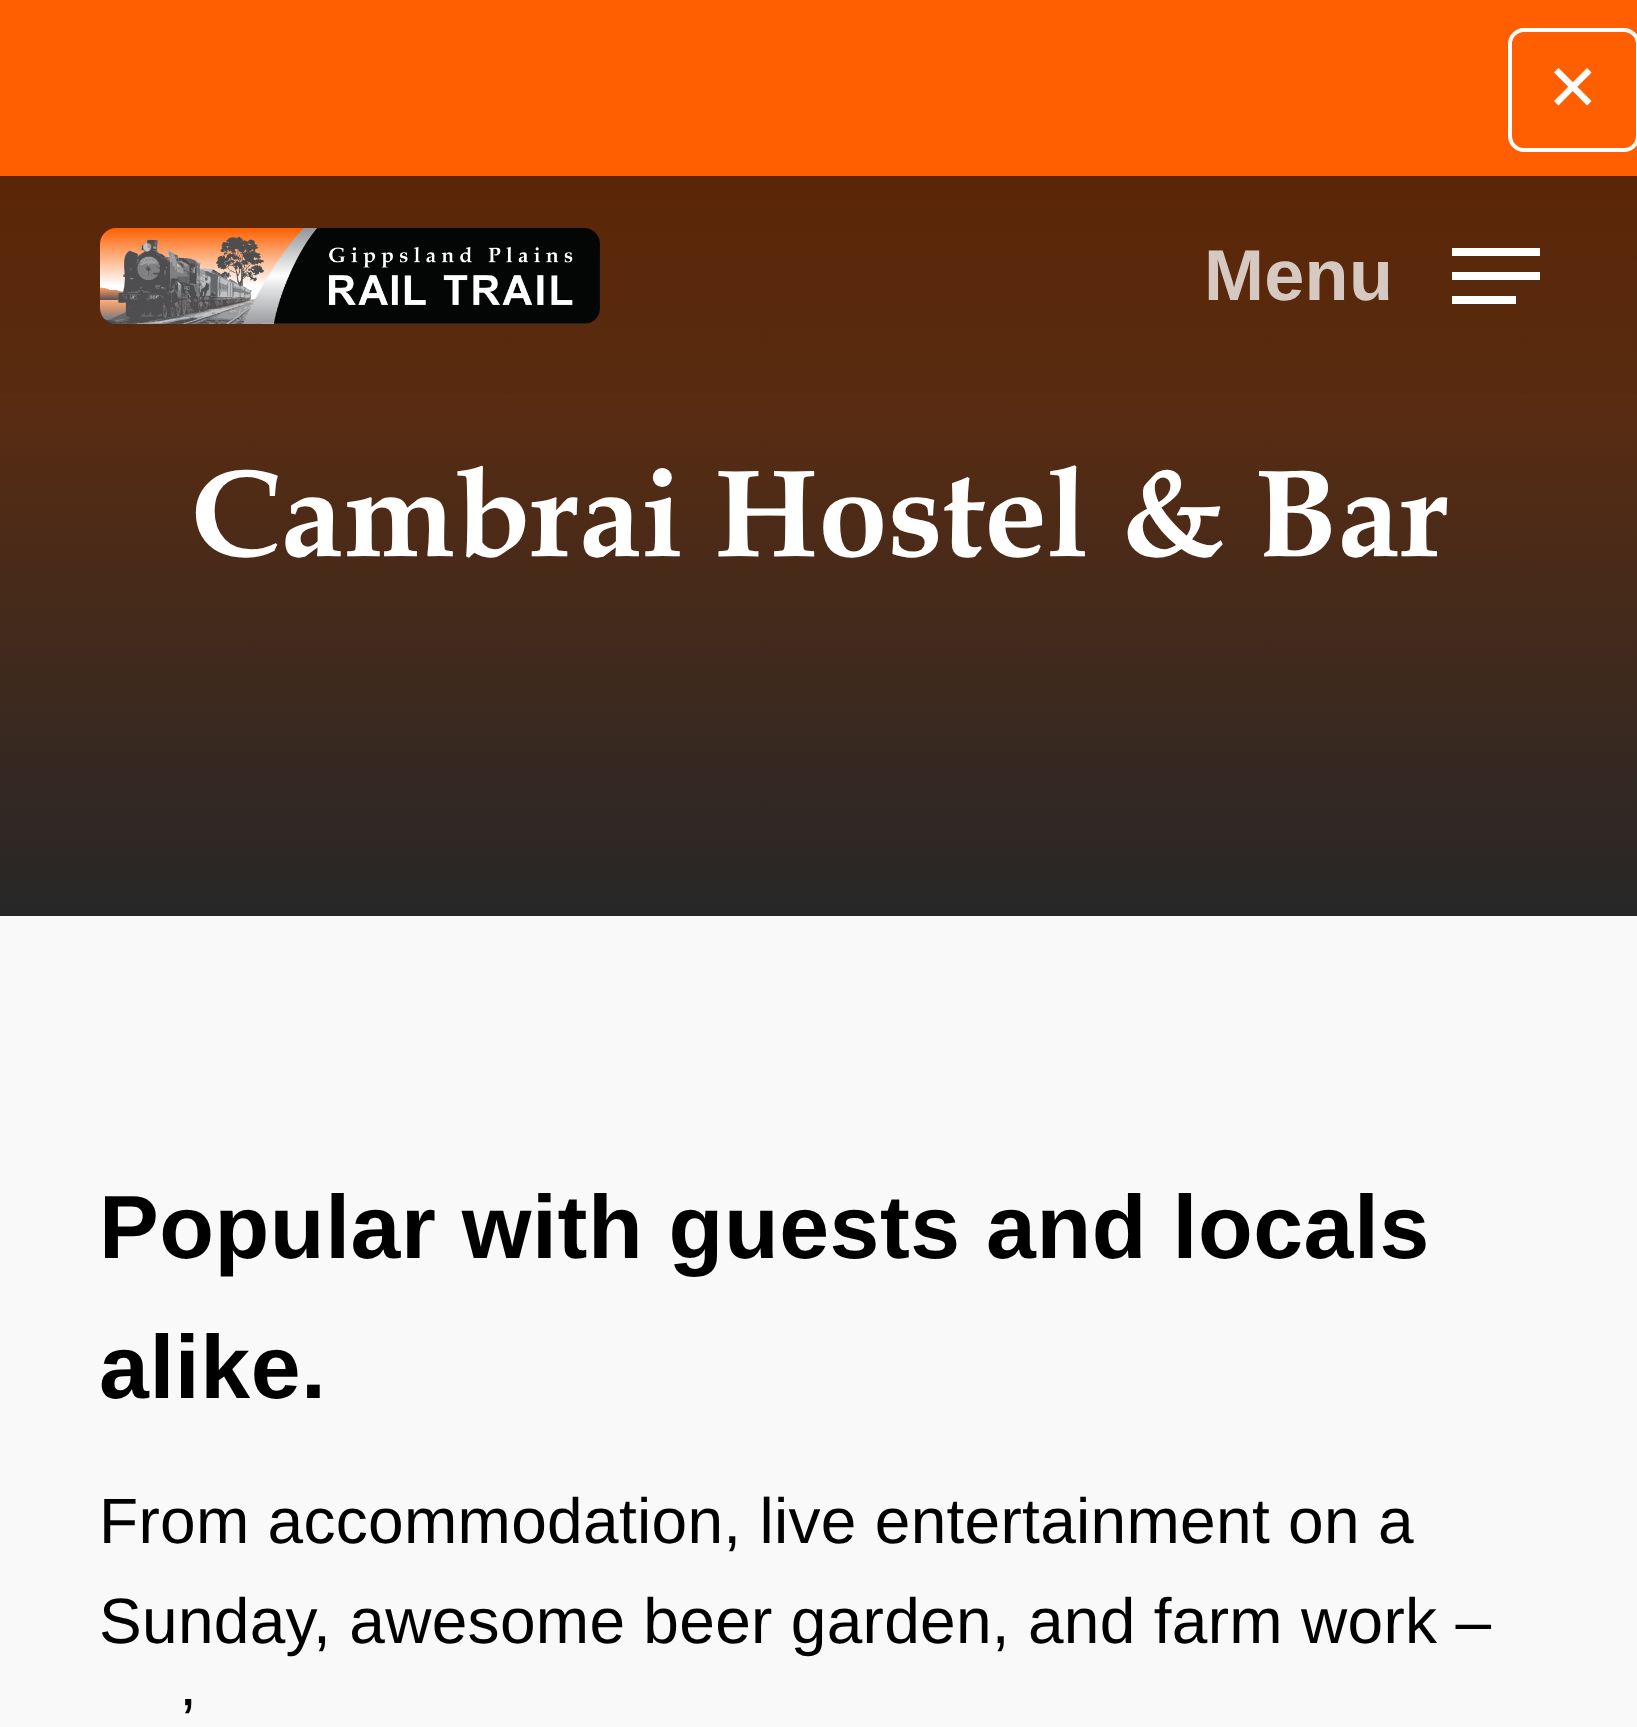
<?xml version="1.0" encoding="UTF-8"?>
<svg xmlns="http://www.w3.org/2000/svg" xmlns:xlink="http://www.w3.org/1999/xlink" width="1637" height="1727">
  <defs>
    <linearGradient id="g1" gradientUnits="userSpaceOnUse" x1="820" y1="0" x2="820" y2="916"><stop offset="0" stop-color="#803000" /><stop offset="1" stop-color="#272728" /></linearGradient>
    <linearGradient id="g2" gradientUnits="userSpaceOnUse" x1="820" y1="448" x2="820" y2="0"><stop offset="0" stop-color="#ffffff" stop-opacity="0" /><stop offset="0.01" stop-color="#000000" stop-opacity="0" /><stop offset="0.16" stop-color="#000000" stop-opacity="0.04" /><stop offset="0.75" stop-color="#000000" stop-opacity="0.23" /><stop offset="1" stop-color="#000000" stop-opacity="0.33" /></linearGradient>
  </defs>
  <rect width="100%" height="100%" fill="#f9f9f9" />
  <rect width="1637" height="176" fill="#ff5f00" />
  <rect x="1510" y="30" width="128" height="120" rx="14" fill="none" stroke="#ffffff" stroke-width="4" />
  <rect y="176" width="1637" height="740" fill="url(#g1)" />
  <rect y="176" width="1637" height="218" fill="url(#g2)" />
  <image x="100" y="228" width="500" height="96" xlink:href="image1.png" />
  <rect x="1452" y="248" width="88" height="8" fill="#ffffff" />
  <rect x="1452" y="296" width="64" height="8" fill="#ffffff" />
  <rect x="1452" y="272" width="88" height="8" fill="#ffffff" />
  <text x="1546" y="110" style="font-family: DejaVu Sans; font-size: 64px; fill: #ffffff">✕</text>
  <text x="1204" y="300" style="font-family: Liberation Sans; font-size: 72px; font-weight: bold; letter-spacing: 0.3px; fill: #d6c9c2">Menu</text>
  <text x="191" y="556" style="font-family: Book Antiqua; font-size: 124.75px; font-weight: bold; fill: #ffffff">Cambrai Hostel &amp; Bar</text>
  <text x="99" y="1258" style="font-family: Liberation Sans; font-size: 89.6px; font-weight: bold; letter-spacing: 0.55px; fill: #000000">Popular with guests and locals</text>
  <text x="99" y="1398" style="font-family: Liberation Sans; font-size: 89.6px; font-weight: bold; letter-spacing: 0.55px; fill: #000000">alike.</text>
  <text x="99" y="1543" style="font-family: Liberation Sans; font-size: 64px; letter-spacing: 0.3px; fill: #000000">From accommodation, live entertainment on a</text>
  <text x="99" y="1643" style="font-family: Liberation Sans; font-size: 64px; letter-spacing: 0.3px; fill: #000000">Sunday, awesome beer garden, and farm work –</text>
  <text x="181" y="1743" style="font-family: Liberation Sans; font-size: 64px; letter-spacing: 0.3px; fill: #000000">’</text>
</svg>
